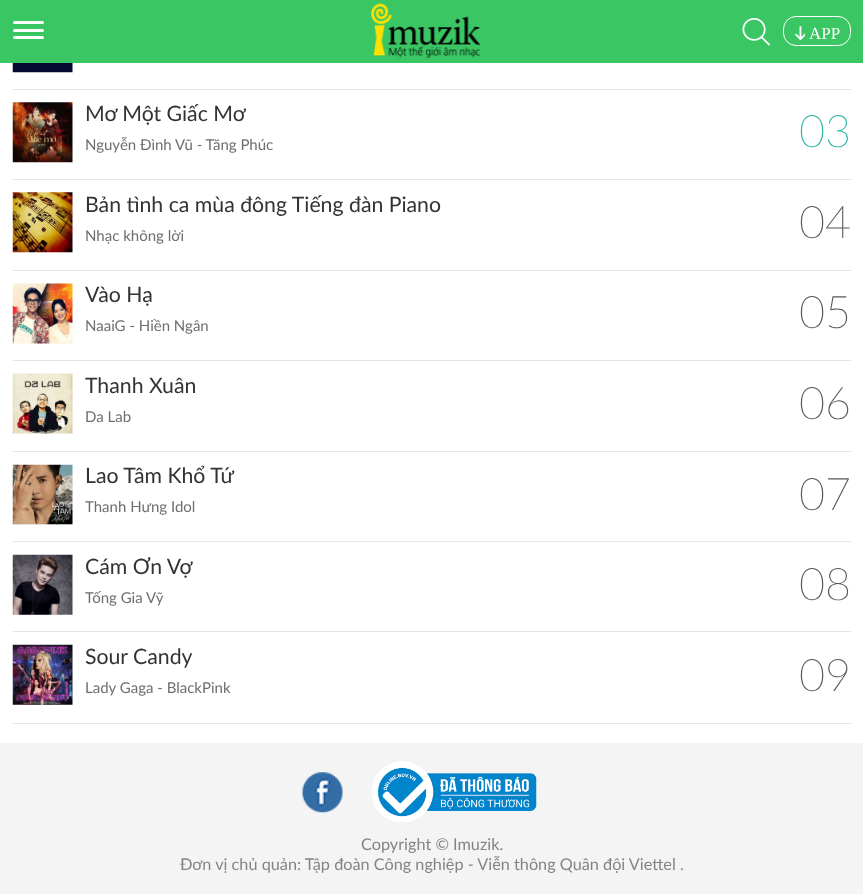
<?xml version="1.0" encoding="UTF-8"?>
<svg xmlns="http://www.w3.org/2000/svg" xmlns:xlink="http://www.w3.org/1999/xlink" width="863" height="894">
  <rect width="100%" height="100%" fill="#ffffff" />
  <rect width="863" height="63" fill="#3ac663" />
  <rect x="13" y="21" width="31" height="3" rx="1.5" fill="#ffffff" />
  <rect x="13" y="29" width="31" height="3" rx="1.5" fill="#ffffff" />
  <rect x="13" y="36" width="31" height="3" rx="1.5" fill="#ffffff" />
  <image x="371" y="3" width="109" height="55" xlink:href="image1.png" />
  <image x="742" y="18" width="28" height="28" xlink:href="image2.png" />
  <rect x="783.5" y="16.5" width="67" height="29" rx="12.5" fill="none" stroke="#ffffff" />
  <image x="795" y="26" width="10" height="14" xlink:href="image3.png" />
  <image x="12" y="63" width="61" height="10" xlink:href="image4.png" />
  <rect x="13" y="89" width="838" height="1" fill="#e5e5e5" />
  <image x="12" y="102" width="61" height="61" xlink:href="image5.png" />
  <rect x="13" y="179" width="838" height="1" fill="#e5e5e5" />
  <image x="12" y="192" width="61" height="61" xlink:href="image6.png" />
  <rect x="13" y="270" width="838" height="1" fill="#e5e5e5" />
  <image x="12" y="283" width="61" height="61" xlink:href="image7.png" />
  <rect x="13" y="360" width="838" height="1" fill="#e5e5e5" />
  <image x="12" y="373" width="61" height="61" xlink:href="image8.png" />
  <rect x="13" y="451" width="838" height="1" fill="#e5e5e5" />
  <image x="12" y="464" width="61" height="61" xlink:href="image9.png" />
  <rect x="13" y="541" width="838" height="1" fill="#e5e5e5" />
  <image x="12" y="554" width="61" height="61" xlink:href="image10.png" />
  <rect x="13" y="631" width="838" height="1" fill="#e5e5e5" />
  <rect x="13" y="723" width="838" height="1" fill="#e5e5e5" />
  <image x="12" y="644" width="61" height="61" xlink:href="image11.png" />
  <rect y="743" width="863" height="151" fill="#f4f4f4" />
  <image x="302" y="772" width="41" height="41" xlink:href="image12.png" />
  <image x="371" y="761" width="166" height="62" xlink:href="image13.png" />
  <text x="809" y="39" style="font-family: Liberation Serif; font-size: 17px; fill: #ffffff">APP</text>
  <text x="85" y="121" style="font-family: Lato; font-size: 21.25px; fill: #333333">Mơ Một Giấc Mơ</text>
  <text x="85" y="150" style="font-family: Lato; font-size: 15px; fill: #6e6e6e">Nguyễn Đình Vũ - Tăng Phúc</text>
  <text x="799" y="147" style="font-family: Lato; font-size: 45px; font-weight: 100; fill: #28b7a3">03</text>
  <text x="85" y="212" style="font-family: Lato; font-size: 21.25px; fill: #333333">Bản tình ca mùa đông Tiếng đàn Piano</text>
  <text x="85" y="241" style="font-family: Lato; font-size: 15px; fill: #6e6e6e">Nhạc không lời</text>
  <text x="799" y="238" style="font-family: Lato; font-size: 45px; font-weight: 100; fill: #585858">04</text>
  <text x="85" y="302" style="font-family: Lato; font-size: 21.25px; fill: #333333">Vào Hạ</text>
  <text x="85" y="331" style="font-family: Lato; font-size: 15px; fill: #6e6e6e">NaaiG - Hiền Ngân</text>
  <text x="799" y="328" style="font-family: Lato; font-size: 45px; font-weight: 100; fill: #585858">05</text>
  <text x="85" y="393" style="font-family: Lato; font-size: 21.25px; fill: #333333">Thanh Xuân</text>
  <text x="85" y="422" style="font-family: Lato; font-size: 15px; fill: #6e6e6e">Da Lab</text>
  <text x="799" y="419" style="font-family: Lato; font-size: 45px; font-weight: 100; fill: #585858">06</text>
  <text x="85" y="483" style="font-family: Lato; font-size: 21.25px; fill: #333333">Lao Tâm Khổ Tứ</text>
  <text x="85" y="512" style="font-family: Lato; font-size: 15px; fill: #6e6e6e">Thanh Hưng Idol</text>
  <text x="799" y="510" style="font-family: Lato; font-size: 45px; font-weight: 100; fill: #585858">07</text>
  <text x="85" y="574" style="font-family: Lato; font-size: 21.25px; fill: #333333">Cám Ơn Vợ</text>
  <text x="85" y="603" style="font-family: Lato; font-size: 15px; fill: #6e6e6e">Tống Gia Vỹ</text>
  <text x="799" y="600" style="font-family: Lato; font-size: 45px; font-weight: 100; fill: #585858">08</text>
  <text x="85" y="664" style="font-family: Lato; font-size: 21.25px; fill: #333333">Sour Candy</text>
  <text x="85" y="693" style="font-family: Lato; font-size: 15px; fill: #6e6e6e">Lady Gaga - BlackPink</text>
  <text x="799" y="691" style="font-family: Lato; font-size: 45px; font-weight: 100; fill: #585858">09</text>
  <text x="361" y="850" style="font-family: Lato; font-size: 16.25px; fill: #848484">Copyright © Imuzik.</text>
  <text x="180" y="870" style="font-family: Lato; font-size: 16.25px; fill: #848484">Đơn vị chủ quản: Tập đoàn Công nghiệp - Viễn thông Quân đội Viettel .</text>
</svg>
